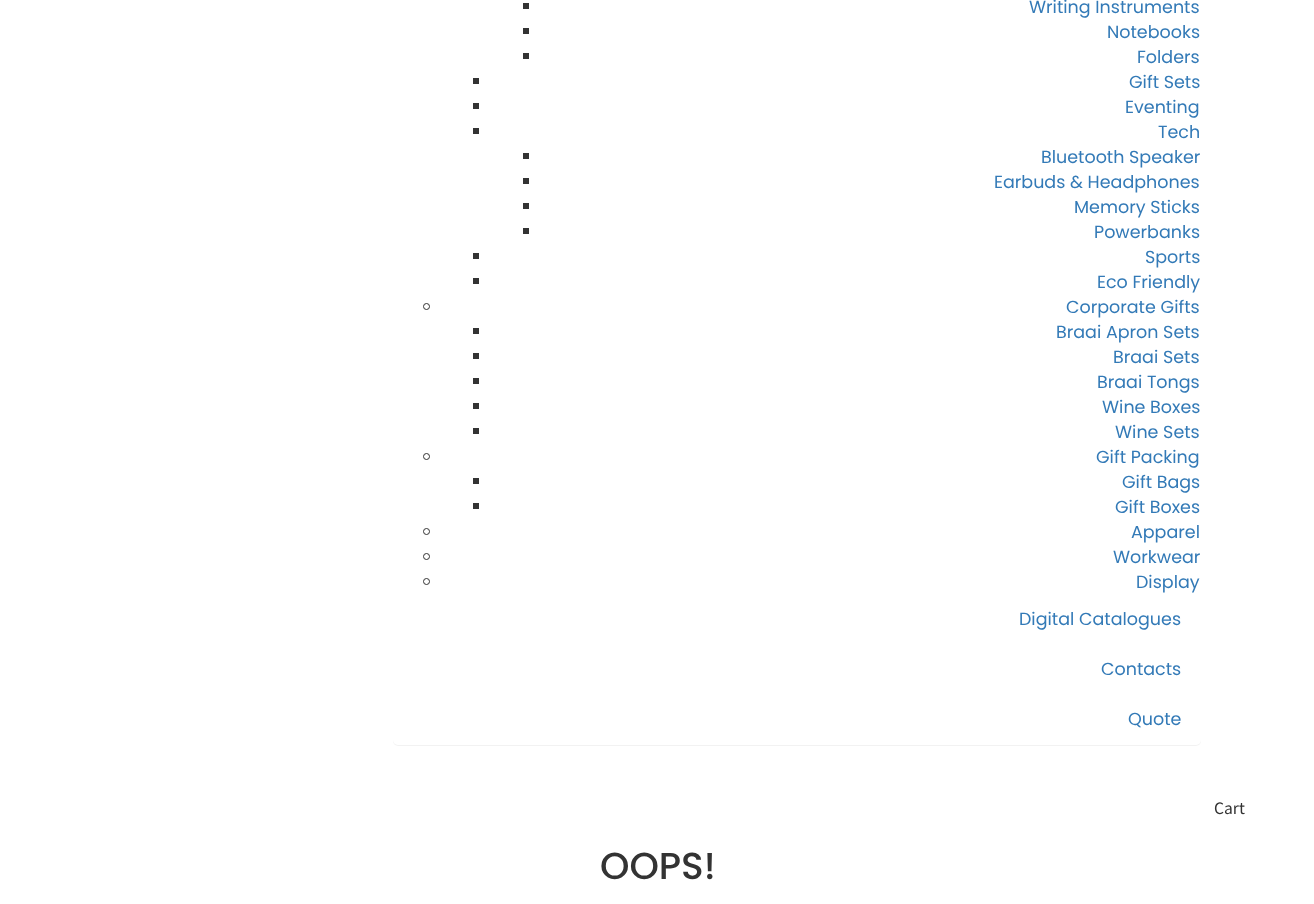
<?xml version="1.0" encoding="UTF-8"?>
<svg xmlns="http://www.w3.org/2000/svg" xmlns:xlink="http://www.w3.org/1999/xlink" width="1314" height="904">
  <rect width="100%" height="100%" fill="#ffffff" />
  <rect x="393" y="-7" width="808" height="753" rx="5" fill="#000000" fill-opacity="0.05" filter="blur(0.5px)" />
  <rect x="393" y="-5" width="808" height="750" rx="5" fill="#ffffff" />
  <rect x="523" y="3" width="6" height="6" fill="#333333" />
  <rect x="523" y="28" width="6" height="6" fill="#333333" />
  <rect x="523" y="53" width="6" height="6" fill="#333333" />
  <rect x="473" y="78" width="6" height="6" fill="#333333" />
  <rect x="473" y="103" width="6" height="6" fill="#333333" />
  <rect x="473" y="128" width="6" height="6" fill="#333333" />
  <rect x="523" y="153" width="6" height="6" fill="#333333" />
  <rect x="523" y="178" width="6" height="6" fill="#333333" />
  <rect x="523" y="203" width="6" height="6" fill="#333333" />
  <rect x="523" y="228" width="6" height="6" fill="#333333" />
  <rect x="473" y="253" width="6" height="6" fill="#333333" />
  <rect x="473" y="278" width="6" height="6" fill="#333333" />
  <circle cx="426.5" cy="306.5" r="3" fill="none" stroke="#333333" />
  <rect x="473" y="328" width="6" height="6" fill="#333333" />
  <rect x="473" y="353" width="6" height="6" fill="#333333" />
  <rect x="473" y="378" width="6" height="6" fill="#333333" />
  <rect x="473" y="403" width="6" height="6" fill="#333333" />
  <rect x="473" y="428" width="6" height="6" fill="#333333" />
  <circle cx="426.5" cy="456.5" r="3" fill="none" stroke="#333333" />
  <rect x="473" y="478" width="6" height="6" fill="#333333" />
  <rect x="473" y="503" width="6" height="6" fill="#333333" />
  <circle cx="426.5" cy="531.5" r="3" fill="none" stroke="#333333" />
  <circle cx="426.5" cy="556.5" r="3" fill="none" stroke="#333333" />
  <circle cx="426.5" cy="581.5" r="3" fill="none" stroke="#333333" />
  <text x="1029" y="13" style="font-family: Poppins; font-size: 17.5px; fill: #337ab7">Writing Instruments</text>
  <text x="1107" y="38" style="font-family: Poppins; font-size: 17.5px; fill: #337ab7">Notebooks</text>
  <text x="1137" y="63" style="font-family: Poppins; font-size: 17.5px; fill: #337ab7">Folders</text>
  <text x="1129" y="88" style="font-family: Poppins; font-size: 17.5px; fill: #337ab7">Gift Sets</text>
  <text x="1125" y="113" style="font-family: Poppins; font-size: 17.5px; fill: #337ab7">Eventing</text>
  <text x="1158" y="138" style="font-family: Poppins; font-size: 17.5px; fill: #337ab7">Tech</text>
  <text x="1041" y="163" style="font-family: Poppins; font-size: 17.5px; fill: #337ab7">Bluetooth Speaker</text>
  <text x="994" y="188" style="font-family: Poppins; font-size: 17.5px; fill: #337ab7">Earbuds &amp; Headphones</text>
  <text x="1074" y="213" style="font-family: Poppins; font-size: 17.5px; fill: #337ab7">Memory Sticks</text>
  <text x="1094" y="238" style="font-family: Poppins; font-size: 17.5px; fill: #337ab7">Powerbanks</text>
  <text x="1145" y="263" style="font-family: Poppins; font-size: 17.5px; fill: #337ab7">Sports</text>
  <text x="1097" y="288" style="font-family: Poppins; font-size: 17.5px; fill: #337ab7">Eco Friendly</text>
  <text x="1066" y="313" style="font-family: Poppins; font-size: 17.5px; fill: #337ab7">Corporate Gifts</text>
  <text x="1056" y="338" style="font-family: Poppins; font-size: 17.5px; fill: #337ab7">Braai Apron Sets</text>
  <text x="1113" y="363" style="font-family: Poppins; font-size: 17.5px; fill: #337ab7">Braai Sets</text>
  <text x="1097" y="388" style="font-family: Poppins; font-size: 17.5px; fill: #337ab7">Braai Tongs</text>
  <text x="1102" y="413" style="font-family: Poppins; font-size: 17.5px; fill: #337ab7">Wine Boxes</text>
  <text x="1115" y="438" style="font-family: Poppins; font-size: 17.5px; fill: #337ab7">Wine Sets</text>
  <text x="1096" y="463" style="font-family: Poppins; font-size: 17.5px; fill: #337ab7">Gift Packing</text>
  <text x="1122" y="488" style="font-family: Poppins; font-size: 17.5px; fill: #337ab7">Gift Bags</text>
  <text x="1115" y="513" style="font-family: Poppins; font-size: 17.5px; fill: #337ab7">Gift Boxes</text>
  <text x="1131" y="538" style="font-family: Poppins; font-size: 17.5px; fill: #337ab7">Apparel</text>
  <text x="1113" y="563" style="font-family: Poppins; font-size: 17.5px; fill: #337ab7">Workwear</text>
  <text x="1136" y="588" style="font-family: Poppins; font-size: 17.5px; fill: #337ab7">Display</text>
  <text x="1019" y="625" style="font-family: Poppins; font-size: 17.5px; fill: #337ab7">Digital Catalogues</text>
  <text x="1101" y="675" style="font-family: Poppins; font-size: 17.5px; fill: #337ab7">Contacts</text>
  <text x="1128" y="725" style="font-family: Poppins; font-size: 17.5px; fill: #337ab7">Quote</text>
  <text x="1214" y="814" style="font-family: Source Sans Pro; font-size: 17.5px; fill: #333333">Cart</text>
  <text x="600" y="879" style="font-family: Poppins; font-size: 37.5px; font-weight: 500; fill: #333333">OOPS!</text>
</svg>
